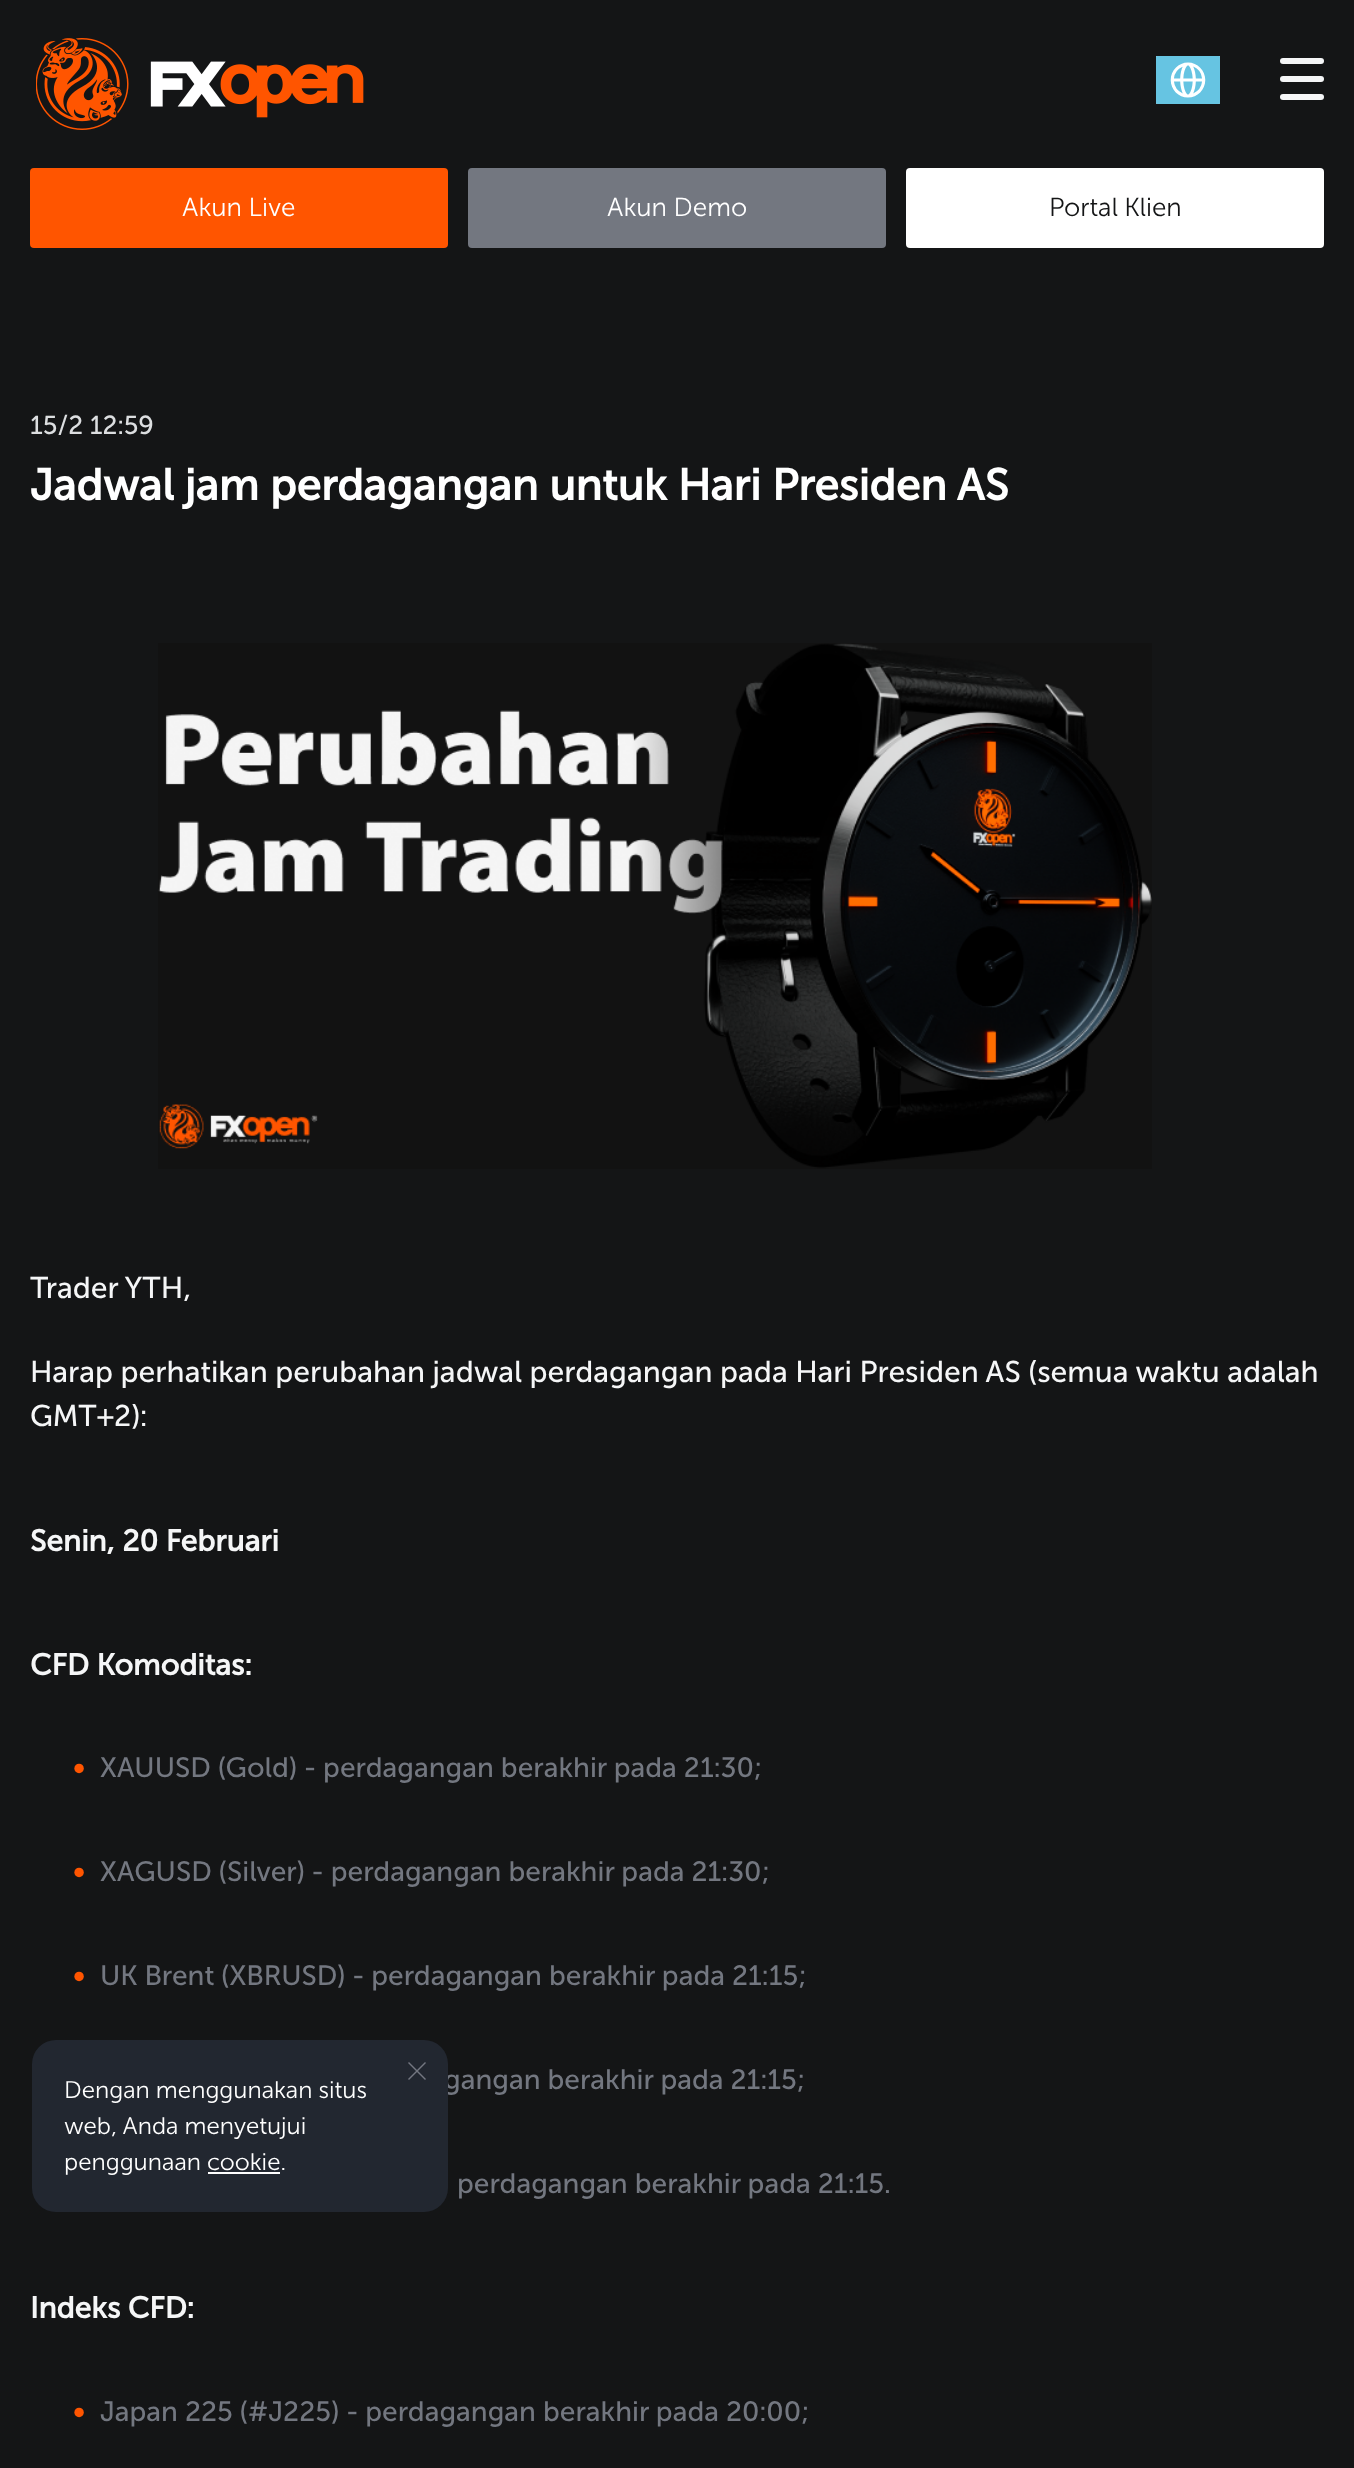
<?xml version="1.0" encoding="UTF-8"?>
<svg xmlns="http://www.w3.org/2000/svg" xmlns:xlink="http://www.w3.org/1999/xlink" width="1354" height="2468">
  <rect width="100%" height="100%" fill="#141516" />
  <image x="1156" y="56" width="64" height="48" xlink:href="image1.png" />
  <rect x="1280" y="76" width="44" height="6" rx="3" fill="#f5f6f7" />
  <rect x="1280" y="58" width="44" height="6" rx="3" fill="#f5f6f7" />
  <rect x="1280" y="94" width="44" height="6" rx="3" fill="#f5f6f7" />
  <image x="36" y="38" width="328" height="92" xlink:href="image2.png" />
  <rect x="30" y="168" width="418" height="80" rx="4" fill="#ff5500" />
  <rect x="468" y="168" width="418" height="80" rx="4" fill="#737780" />
  <rect x="906" y="168" width="418" height="80" rx="4" fill="#ffffff" />
  <image x="158" y="643" width="994" height="526" xlink:href="image3.png" />
  <text x="182" y="216" style="font-family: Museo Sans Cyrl; font-size: 26px; font-weight: 300; fill: #ffffff">Akun Live</text>
  <text x="607" y="216" style="font-family: Museo Sans Cyrl; font-size: 26px; font-weight: 300; fill: #ffffff">Akun Demo</text>
  <text x="1049" y="216" style="font-family: Museo Sans Cyrl; font-size: 26px; font-weight: 300; fill: #141516">Portal Klien</text>
  <text x="30" y="434" style="font-family: Museo Sans Cyrl; font-size: 26px; fill: #dcdee0">15/2 12:59</text>
  <text x="30" y="500" style="font-family: Museo Sans Cyrl; font-size: 44px; font-weight: bold; fill: #ffffff">Jadwal jam perdagangan untuk Hari Presiden AS</text>
  <text x="30" y="1298" style="font-family: Museo Sans Cyrl; font-size: 30px; fill: #f5f6f7">Trader YTH,</text>
  <text x="30" y="1382" style="font-family: Museo Sans Cyrl; font-size: 30px; fill: #f5f6f7">Harap perhatikan perubahan jadwal perdagangan pada Hari Presiden AS (semua waktu adalah</text>
  <text x="30" y="1426" style="font-family: Museo Sans Cyrl; font-size: 30px; fill: #f5f6f7">GMT+2):</text>
  <text x="30" y="1551" style="font-family: Museo Sans Cyrl; font-size: 30px; font-weight: bold; fill: #f5f6f7">Senin, 20 Februari</text>
  <text x="30" y="1675" style="font-family: Museo Sans Cyrl; font-size: 30px; font-weight: bold; fill: #f5f6f7">CFD Komoditas:</text>
  <text x="72" y="1777" style="font-family: Museo Sans Cyrl; font-size: 28px; font-weight: bold; fill: #ff5500">•</text>
  <text x="100" y="1777" style="font-family: Museo Sans Cyrl; font-size: 28px; fill: #737780">XAUUSD (Gold) - perdagangan berakhir pada 21:30;</text>
  <text x="72" y="1881" style="font-family: Museo Sans Cyrl; font-size: 28px; font-weight: bold; fill: #ff5500">•</text>
  <text x="100" y="1881" style="font-family: Museo Sans Cyrl; font-size: 28px; fill: #737780">XAGUSD (Silver) - perdagangan berakhir pada 21:30;</text>
  <text x="72" y="1985" style="font-family: Museo Sans Cyrl; font-size: 28px; font-weight: bold; fill: #ff5500">•</text>
  <text x="100" y="1985" style="font-family: Museo Sans Cyrl; font-size: 28px; fill: #737780">UK Brent (XBRUSD) - perdagangan berakhir pada 21:15;</text>
  <text x="444" y="2089" style="font-family: Museo Sans Cyrl; font-size: 28px; fill: #737780">gangan berakhir pada 21:15;</text>
  <text x="457" y="2193" style="font-family: Museo Sans Cyrl; font-size: 28px; fill: #737780">perdagangan berakhir pada 21:15.</text>
  <text x="30" y="2318" style="font-family: Museo Sans Cyrl; font-size: 30px; font-weight: bold; fill: #f5f6f7">Indeks CFD:</text>
  <text x="72" y="2421" style="font-family: Museo Sans Cyrl; font-size: 28px; font-weight: bold; fill: #ff5500">•</text>
  <text x="100" y="2421" style="font-family: Museo Sans Cyrl; font-size: 28px; fill: #737780">Japan 225 (#J225) - perdagangan berakhir pada 20:00;</text>
  <rect x="32" y="2040" width="416" height="172" rx="24" fill="#222730" />
  <path d="M 408 2063 l 1 -1 l 17 17 l -1 1 z" fill="#737780" />
  <path d="M 425 2062 l 1 1 l -17 17 l -1 -1 z" fill="#737780" />
  <text x="64" y="2098" style="font-family: Museo Sans Cyrl; font-size: 24px; font-weight: 300; fill: #ffffff">Dengan menggunakan situs</text>
  <text x="64" y="2134" style="font-family: Museo Sans Cyrl; font-size: 24px; font-weight: 300; fill: #ffffff">web, Anda menyetujui</text>
  <text x="64" y="2170" style="font-family: Museo Sans Cyrl; font-size: 24px; font-weight: 300; fill: #ffffff">penggunaan cookie.</text>
  <rect x="208" y="2172" width="72" height="2" fill="#ffffff" />
</svg>
